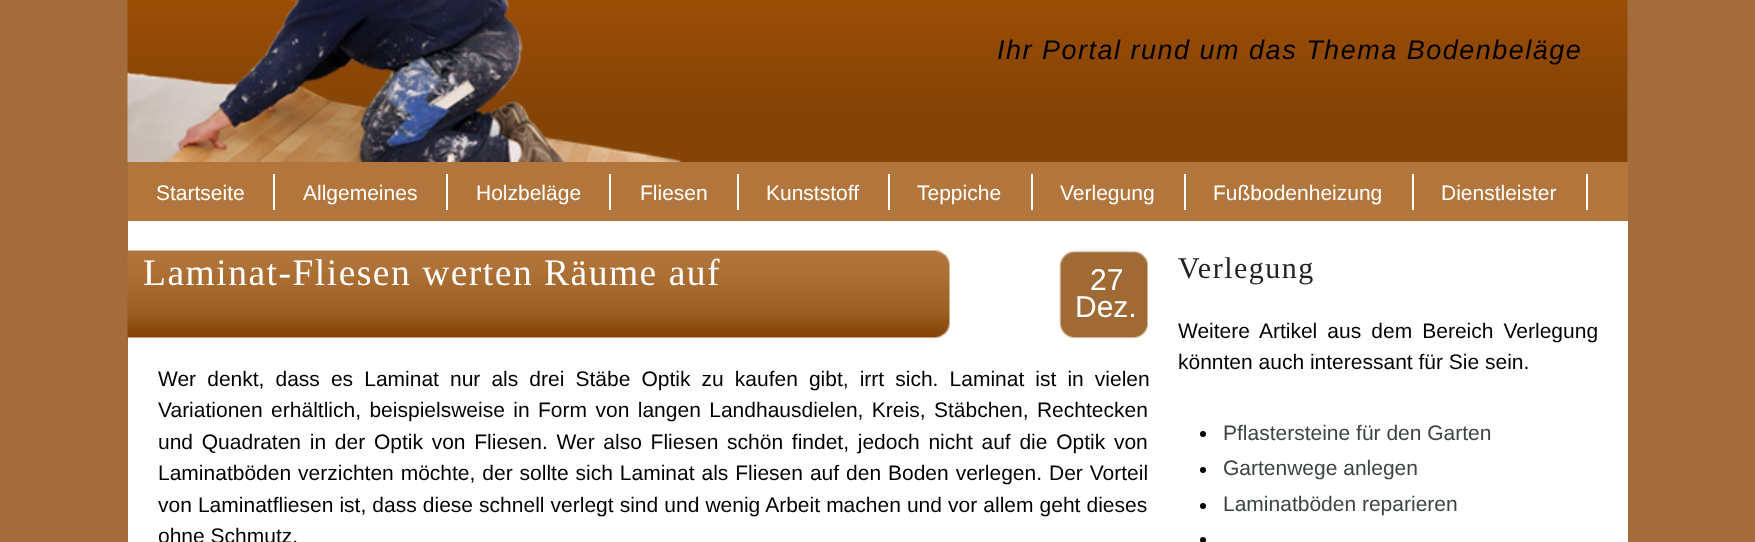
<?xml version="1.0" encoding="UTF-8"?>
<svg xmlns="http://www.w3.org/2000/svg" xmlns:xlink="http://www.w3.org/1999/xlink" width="1755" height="542">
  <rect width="100%" height="100%" fill="#a36d3b" />
  <image x="127" y="0" width="1501" height="162" xlink:href="image1.png" />
  <rect x="128" y="162" width="1500" height="59" fill="#b2763c" />
  <rect x="273" y="174" width="2" height="36" fill="#ffffff" />
  <rect x="446" y="174" width="2" height="36" fill="#ffffff" />
  <rect x="609" y="174" width="2" height="36" fill="#ffffff" />
  <rect x="737" y="174" width="2" height="36" fill="#ffffff" />
  <rect x="888" y="174" width="2" height="36" fill="#ffffff" />
  <rect x="1031" y="174" width="2" height="36" fill="#ffffff" />
  <rect x="1184" y="174" width="2" height="36" fill="#ffffff" />
  <rect x="1412" y="174" width="2" height="36" fill="#ffffff" />
  <rect x="1586" y="174" width="2" height="36" fill="#ffffff" />
  <rect x="128" y="221" width="1500" height="321" fill="#ffffff" />
  <image x="127" y="250" width="823" height="88" xlink:href="image2.png" />
  <image x="1059" y="250" width="89" height="88" xlink:href="image3.png" />
  <circle cx="1203" cy="434" r="3" fill="#000000" />
  <circle cx="1203" cy="470" r="3" fill="#000000" />
  <circle cx="1203" cy="506" r="3" fill="#000000" />
  <circle cx="1203" cy="540" r="3" fill="#000000" />
  <text x="997" y="59" style="font-family: Liberation Sans; font-size: 27px; font-style: italic; letter-spacing: 1.5px; fill: #000000">Ihr Portal rund um das Thema Bodenbeläge</text>
  <text x="156" y="200" style="font-family: Liberation Sans; font-size: 21px; fill: #ffffff">Startseite</text>
  <text x="303" y="200" style="font-family: Liberation Sans; font-size: 21px; fill: #ffffff">Allgemeines</text>
  <text x="476" y="200" style="font-family: Liberation Sans; font-size: 21px; fill: #ffffff">Holzbeläge</text>
  <text x="640" y="200" style="font-family: Liberation Sans; font-size: 21px; fill: #ffffff">Fliesen</text>
  <text x="766" y="200" style="font-family: Liberation Sans; font-size: 21px; fill: #ffffff">Kunststoff</text>
  <text x="917" y="200" style="font-family: Liberation Sans; font-size: 21px; fill: #ffffff">Teppiche</text>
  <text x="1060" y="200" style="font-family: Liberation Sans; font-size: 21px; fill: #ffffff">Verlegung</text>
  <text x="1213" y="200" style="font-family: Liberation Sans; font-size: 21px; fill: #ffffff">Fußbodenheizung</text>
  <text x="1441" y="200" style="font-family: Liberation Sans; font-size: 21px; fill: #ffffff">Dienstleister</text>
  <text x="143" y="285" style="font-family: Liberation Serif; font-size: 37.5px; letter-spacing: 1.5px; fill: #ffffff">Laminat-Fliesen werten Räume auf</text>
  <text x="1090" y="290" style="font-family: Liberation Sans; font-size: 30px; fill: #ffffff">27</text>
  <text x="1075" y="317" style="font-family: Liberation Sans; font-size: 30px; fill: #ffffff">Dez.</text>
  <text x="158" y="386" word-spacing="5.25" style="font-family: Liberation Sans; font-size: 21px; fill: #000000">Wer denkt, dass es Laminat nur als drei Stäbe Optik zu kaufen gibt, irrt sich. Laminat ist in vielen</text>
  <text x="158" y="417" word-spacing="2.6" style="font-family: Liberation Sans; font-size: 21px; fill: #000000">Variationen erhältlich, beispielsweise in Form von langen Landhausdielen, Kreis, Stäbchen, Rechtecken</text>
  <text x="158" y="449" word-spacing="2.9" style="font-family: Liberation Sans; font-size: 21px; fill: #000000">und Quadraten in der Optik von Fliesen. Wer also Fliesen schön findet, jedoch nicht auf die Optik von</text>
  <text x="158" y="480" word-spacing="1.1" style="font-family: Liberation Sans; font-size: 21px; fill: #000000">Laminatböden verzichten möchte, der sollte sich Laminat als Fliesen auf den Boden verlegen. Der Vorteil</text>
  <text x="158" y="512" word-spacing="0.25" style="font-family: Liberation Sans; font-size: 21px; fill: #000000">von Laminatfliesen ist, dass diese schnell verlegt sind und wenig Arbeit machen und vor allem geht dieses</text>
  <text x="158" y="543" style="font-family: Liberation Sans; font-size: 21px; fill: #000000">ohne Schmutz.</text>
  <text x="1178" y="278" style="font-family: Liberation Serif; font-size: 30px; letter-spacing: 1.5px; fill: #231f20">Verlegung</text>
  <text x="1178" y="338" word-spacing="4.25" style="font-family: Liberation Sans; font-size: 21px; fill: #000000">Weitere Artikel aus dem Bereich Verlegung</text>
  <text x="1178" y="369" style="font-family: Liberation Sans; font-size: 21px; fill: #000000">könnten auch interessant für Sie sein.</text>
  <text x="1223" y="440" style="font-family: Liberation Sans; font-size: 21px; fill: #3c4543">Pflastersteine für den Garten</text>
  <text x="1223" y="475" style="font-family: Liberation Sans; font-size: 21px; fill: #3c4543">Gartenwege anlegen</text>
  <text x="1223" y="511" style="font-family: Liberation Sans; font-size: 21px; fill: #3c4543">Laminatböden reparieren</text>
</svg>
